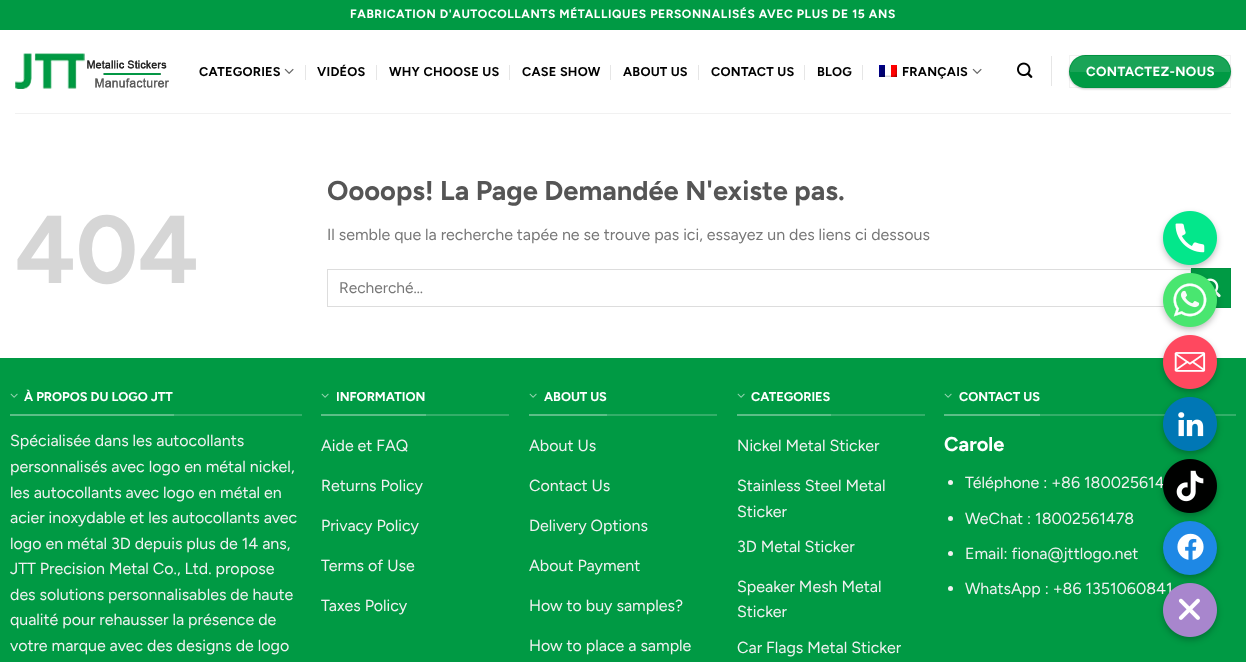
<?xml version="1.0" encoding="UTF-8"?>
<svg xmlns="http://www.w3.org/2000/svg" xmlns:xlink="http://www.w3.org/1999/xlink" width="1246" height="662">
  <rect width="100%" height="100%" fill="#ffffff" />
  <rect width="1246" height="30" fill="#009a44" />
  <image x="15" y="53" width="154" height="36" xlink:href="image1.png" />
  <image x="284" y="68" width="10" height="6" xlink:href="image2.png" />
  <rect x="305" y="65" width="1" height="15" fill="#e6e6e6" />
  <rect x="376" y="65" width="1" height="15" fill="#e6e6e6" />
  <rect x="509" y="65" width="1" height="15" fill="#e6e6e6" />
  <rect x="610" y="65" width="1" height="15" fill="#e6e6e6" />
  <rect x="698" y="65" width="1" height="15" fill="#e6e6e6" />
  <rect x="804" y="65" width="1" height="15" fill="#e6e6e6" />
  <rect x="862" y="65" width="1" height="15" fill="#e6e6e6" />
  <image x="879" y="65" width="18" height="12" xlink:href="image3.png" />
  <image x="972" y="68" width="10" height="6" xlink:href="image2.png" />
  <image x="1017" y="62" width="16" height="16" xlink:href="image4.png" />
  <rect x="1051" y="56" width="1" height="30" fill="#e6e6e6" />
  <rect x="1069" y="56" width="162" height="33" rx="16.5" fill="#000000" fill-opacity="0.24" filter="blur(1px)" />
  <rect x="1069" y="55" width="162" height="33" rx="16.5" fill="#009a44" />
  <rect x="1069.5" y="55.5" width="161" height="32" fill="none" stroke="#000000" stroke-opacity="0.05" />
  <path d="M 1085.5 56 h 129 c 8.5 0 15.5 7 15.5 15.5 v 0.5 h -160 v -0.5 c 0 -8.5 7 -15.5 15.5 -15.5 z" fill="#ffffff" fill-opacity="0.1" />
  <rect x="15" y="113" width="1216" height="1" fill="#f1f1f1" />
  <rect x="327.5" y="269.5" width="863" height="37" fill="none" stroke="#dddddd" />
  <rect x="1191.5" y="268.5" width="39" height="39" fill="#009a44" stroke="#009241" />
  <image x="1207" y="278" width="14" height="20" xlink:href="image5.png" />
  <rect y="358" width="1246" height="304" fill="#009a44" />
  <rect x="174" y="414" width="128" height="2" fill="#33ae69" />
  <rect x="10" y="414" width="164" height="2" fill="#5cbe87" />
  <image x="10" y="393" width="8" height="5" xlink:href="image6.png" />
  <rect x="426" y="414" width="83" height="2" fill="#33ae69" />
  <rect x="321" y="414" width="105" height="2" fill="#5cbe87" />
  <image x="321" y="393" width="8" height="5" xlink:href="image6.png" />
  <rect x="607" y="414" width="110" height="2" fill="#33ae69" />
  <rect x="529" y="414" width="78" height="2" fill="#5cbe87" />
  <image x="529" y="393" width="8" height="5" xlink:href="image6.png" />
  <rect x="831" y="414" width="94" height="2" fill="#33ae69" />
  <rect x="737" y="414" width="94" height="2" fill="#5cbe87" />
  <image x="737" y="393" width="8" height="5" xlink:href="image6.png" />
  <rect x="1040" y="414" width="196" height="2" fill="#33ae69" />
  <rect x="944" y="414" width="96" height="2" fill="#5cbe87" />
  <image x="944" y="393" width="8" height="5" xlink:href="image6.png" />
  <circle cx="950.5" cy="482.5" r="2.5" fill="#f1f1f1" />
  <circle cx="950.5" cy="518.5" r="2.5" fill="#f1f1f1" />
  <circle cx="950.5" cy="553.5" r="2.5" fill="#f1f1f1" />
  <circle cx="950.5" cy="588.5" r="2.5" fill="#f1f1f1" />
  <rect x="1163" y="214" width="54" height="54" rx="27" fill="#000000" fill-opacity="0.25" filter="blur(3px)" />
  <image x="1163" y="211" width="54" height="54" xlink:href="image7.png" />
  <rect x="1163" y="276" width="54" height="54" rx="27" fill="#000000" fill-opacity="0.25" filter="blur(3px)" />
  <image x="1163" y="273" width="54" height="54" xlink:href="image8.png" />
  <rect x="1163" y="338" width="54" height="54" rx="27" fill="#000000" fill-opacity="0.25" filter="blur(3px)" />
  <image x="1163" y="335" width="54" height="54" xlink:href="image9.png" />
  <rect x="1163" y="400" width="54" height="54" rx="27" fill="#000000" fill-opacity="0.25" filter="blur(3px)" />
  <image x="1163" y="397" width="54" height="54" xlink:href="image10.png" />
  <rect x="1163" y="462" width="54" height="54" rx="27" fill="#000000" fill-opacity="0.25" filter="blur(3px)" />
  <rect x="1163" y="524" width="54" height="54" rx="27" fill="#000000" fill-opacity="0.25" filter="blur(3px)" />
  <circle cx="1190" cy="548" r="27" fill="#1e88e5" />
  <image x="1177" y="533" width="27" height="27" xlink:href="image12.png" />
  <rect x="1163" y="586" width="54" height="54" rx="27" fill="#000000" fill-opacity="0.25" filter="blur(3px)" />
  <text x="350" y="18" style="font-family: Figtree; font-size: 12px; font-weight: bold; letter-spacing: 0.6px; fill: #ffffff">FABRICATION D'AUTOCOLLANTS MÉTALLIQUES PERSONNALISÉS AVEC PLUS DE 15 ANS</text>
  <text x="199" y="76" style="font-family: Figtree; font-size: 12.75px; font-weight: bold; letter-spacing: 0.25px; fill: #000000">CATEGORIES</text>
  <text x="317" y="76" style="font-family: Figtree; font-size: 12.75px; font-weight: bold; letter-spacing: 0.25px; fill: #000000">VIDÉOS</text>
  <text x="389" y="76" style="font-family: Figtree; font-size: 12.75px; font-weight: bold; letter-spacing: 0.25px; fill: #000000">WHY CHOOSE US</text>
  <text x="522" y="76" style="font-family: Figtree; font-size: 12.75px; font-weight: bold; letter-spacing: 0.25px; fill: #000000">CASE SHOW</text>
  <text x="623" y="76" style="font-family: Figtree; font-size: 12.75px; font-weight: bold; letter-spacing: 0.25px; fill: #000000">ABOUT US</text>
  <text x="711" y="76" style="font-family: Figtree; font-size: 12.75px; font-weight: bold; letter-spacing: 0.25px; fill: #000000">CONTACT US</text>
  <text x="817" y="76" style="font-family: Figtree; font-size: 12.75px; font-weight: bold; letter-spacing: 0.25px; fill: #000000">BLOG</text>
  <text x="902" y="76" style="font-family: Figtree; font-size: 12.75px; font-weight: bold; letter-spacing: 0.25px; fill: #000000">FRANÇAIS</text>
  <text x="1086" y="76" style="font-family: Figtree; font-size: 13.25px; font-weight: bold; letter-spacing: 0.4px; fill: #ffffff">CONTACTEZ-NOUS</text>
  <text x="15" y="283" style="font-family: Figtree; font-size: 96px; font-weight: bold; fill: #d6d6d6">404</text>
  <text x="327" y="200" style="font-family: Figtree; font-size: 27.25px; font-weight: bold; fill: #555555">Oooops! La Page Demandée N'existe pas.</text>
  <text x="327" y="240" style="font-family: Figtree; font-size: 16px; fill: #777777">Il semble que la recherche tapée ne se trouve pas ici, essayez un des liens ci dessous</text>
  <text x="339" y="293" style="font-family: Figtree; font-size: 15.5px; fill: #777777">Recherché…</text>
  <text x="24" y="401" style="font-family: Figtree; font-size: 12.75px; font-weight: bold; fill: #ffffff">À PROPOS DU LOGO JTT</text>
  <text x="10" y="446" style="font-family: Figtree; font-size: 16px; fill: #f1f1f1">Spécialisée dans les autocollants</text>
  <text x="10" y="472" style="font-family: Figtree; font-size: 16px; fill: #f1f1f1">personnalisés avec logo en métal nickel,</text>
  <text x="10" y="498" style="font-family: Figtree; font-size: 16px; fill: #f1f1f1">les autocollants avec logo en métal en</text>
  <text x="10" y="523" style="font-family: Figtree; font-size: 16px; fill: #f1f1f1">acier inoxydable et les autocollants avec</text>
  <text x="10" y="549" style="font-family: Figtree; font-size: 16px; fill: #f1f1f1">logo en métal 3D depuis plus de 14 ans,</text>
  <text x="10" y="574" style="font-family: Figtree; font-size: 16px; fill: #f1f1f1">JTT Precision Metal Co., Ltd. propose</text>
  <text x="10" y="600" style="font-family: Figtree; font-size: 16px; fill: #f1f1f1">des solutions personnalisables de haute</text>
  <text x="10" y="625" style="font-family: Figtree; font-size: 16px; fill: #f1f1f1">qualité pour rehausser la présence de</text>
  <text x="10" y="651" style="font-family: Figtree; font-size: 16px; fill: #f1f1f1">votre marque avec des designs de logo</text>
  <text x="336" y="401" style="font-family: Figtree; font-size: 12.75px; font-weight: bold; fill: #ffffff">INFORMATION</text>
  <text x="321" y="451" style="font-family: Figtree; font-size: 16px; fill: #f1f1f1">Aide et FAQ</text>
  <text x="321" y="491" style="font-family: Figtree; font-size: 16px; fill: #f1f1f1">Returns Policy</text>
  <text x="321" y="531" style="font-family: Figtree; font-size: 16px; fill: #f1f1f1">Privacy Policy</text>
  <text x="321" y="571" style="font-family: Figtree; font-size: 16px; fill: #f1f1f1">Terms of Use</text>
  <text x="321" y="611" style="font-family: Figtree; font-size: 16px; fill: #f1f1f1">Taxes Policy</text>
  <text x="544" y="401" style="font-family: Figtree; font-size: 12.75px; font-weight: bold; fill: #ffffff">ABOUT US</text>
  <text x="529" y="451" style="font-family: Figtree; font-size: 16px; fill: #f1f1f1">About Us</text>
  <text x="529" y="491" style="font-family: Figtree; font-size: 16px; fill: #f1f1f1">Contact Us</text>
  <text x="529" y="531" style="font-family: Figtree; font-size: 16px; fill: #f1f1f1">Delivery Options</text>
  <text x="529" y="571" style="font-family: Figtree; font-size: 16px; fill: #f1f1f1">About Payment</text>
  <text x="529" y="611" style="font-family: Figtree; font-size: 16px; fill: #f1f1f1">How to buy samples?</text>
  <text x="529" y="651" style="font-family: Figtree; font-size: 16px; fill: #f1f1f1">How to place a sample</text>
  <text x="751" y="401" style="font-family: Figtree; font-size: 12.75px; font-weight: bold; fill: #ffffff">CATEGORIES</text>
  <text x="737" y="451" style="font-family: Figtree; font-size: 16px; fill: #f1f1f1">Nickel Metal Sticker</text>
  <text x="737" y="491" style="font-family: Figtree; font-size: 16px; fill: #f1f1f1">Stainless Steel Metal</text>
  <text x="737" y="517" style="font-family: Figtree; font-size: 16px; fill: #f1f1f1">Sticker</text>
  <text x="737" y="552" style="font-family: Figtree; font-size: 16px; fill: #f1f1f1">3D Metal Sticker</text>
  <text x="737" y="592" style="font-family: Figtree; font-size: 16px; fill: #f1f1f1">Speaker Mesh Metal</text>
  <text x="737" y="617" style="font-family: Figtree; font-size: 16px; fill: #f1f1f1">Sticker</text>
  <text x="737" y="653" style="font-family: Figtree; font-size: 16px; fill: #f1f1f1">Car Flags Metal Sticker</text>
  <text x="959" y="401" style="font-family: Figtree; font-size: 12.75px; font-weight: bold; fill: #ffffff">CONTACT US</text>
  <text x="944" y="451" style="font-family: Figtree; font-size: 20px; font-weight: bold; fill: #ffffff">Carole</text>
  <text x="965" y="488" style="font-family: Figtree; font-size: 16px; fill: #f1f1f1">Téléphone : +86 180025614</text>
  <text x="965" y="524" style="font-family: Figtree; font-size: 16px; fill: #f1f1f1">WeChat : 18002561478</text>
  <text x="965" y="559" style="font-family: Figtree; font-size: 16px; fill: #f1f1f1">Email: fiona@jttlogo.net</text>
  <text x="965" y="594" style="font-family: Figtree; font-size: 16px; fill: #f1f1f1">WhatsApp : +86 1351060841</text>
  <image x="1163" y="459" width="54" height="54" xlink:href="image11.png" />
  <image x="1163" y="583" width="54" height="54" xlink:href="image13.png" />
</svg>
